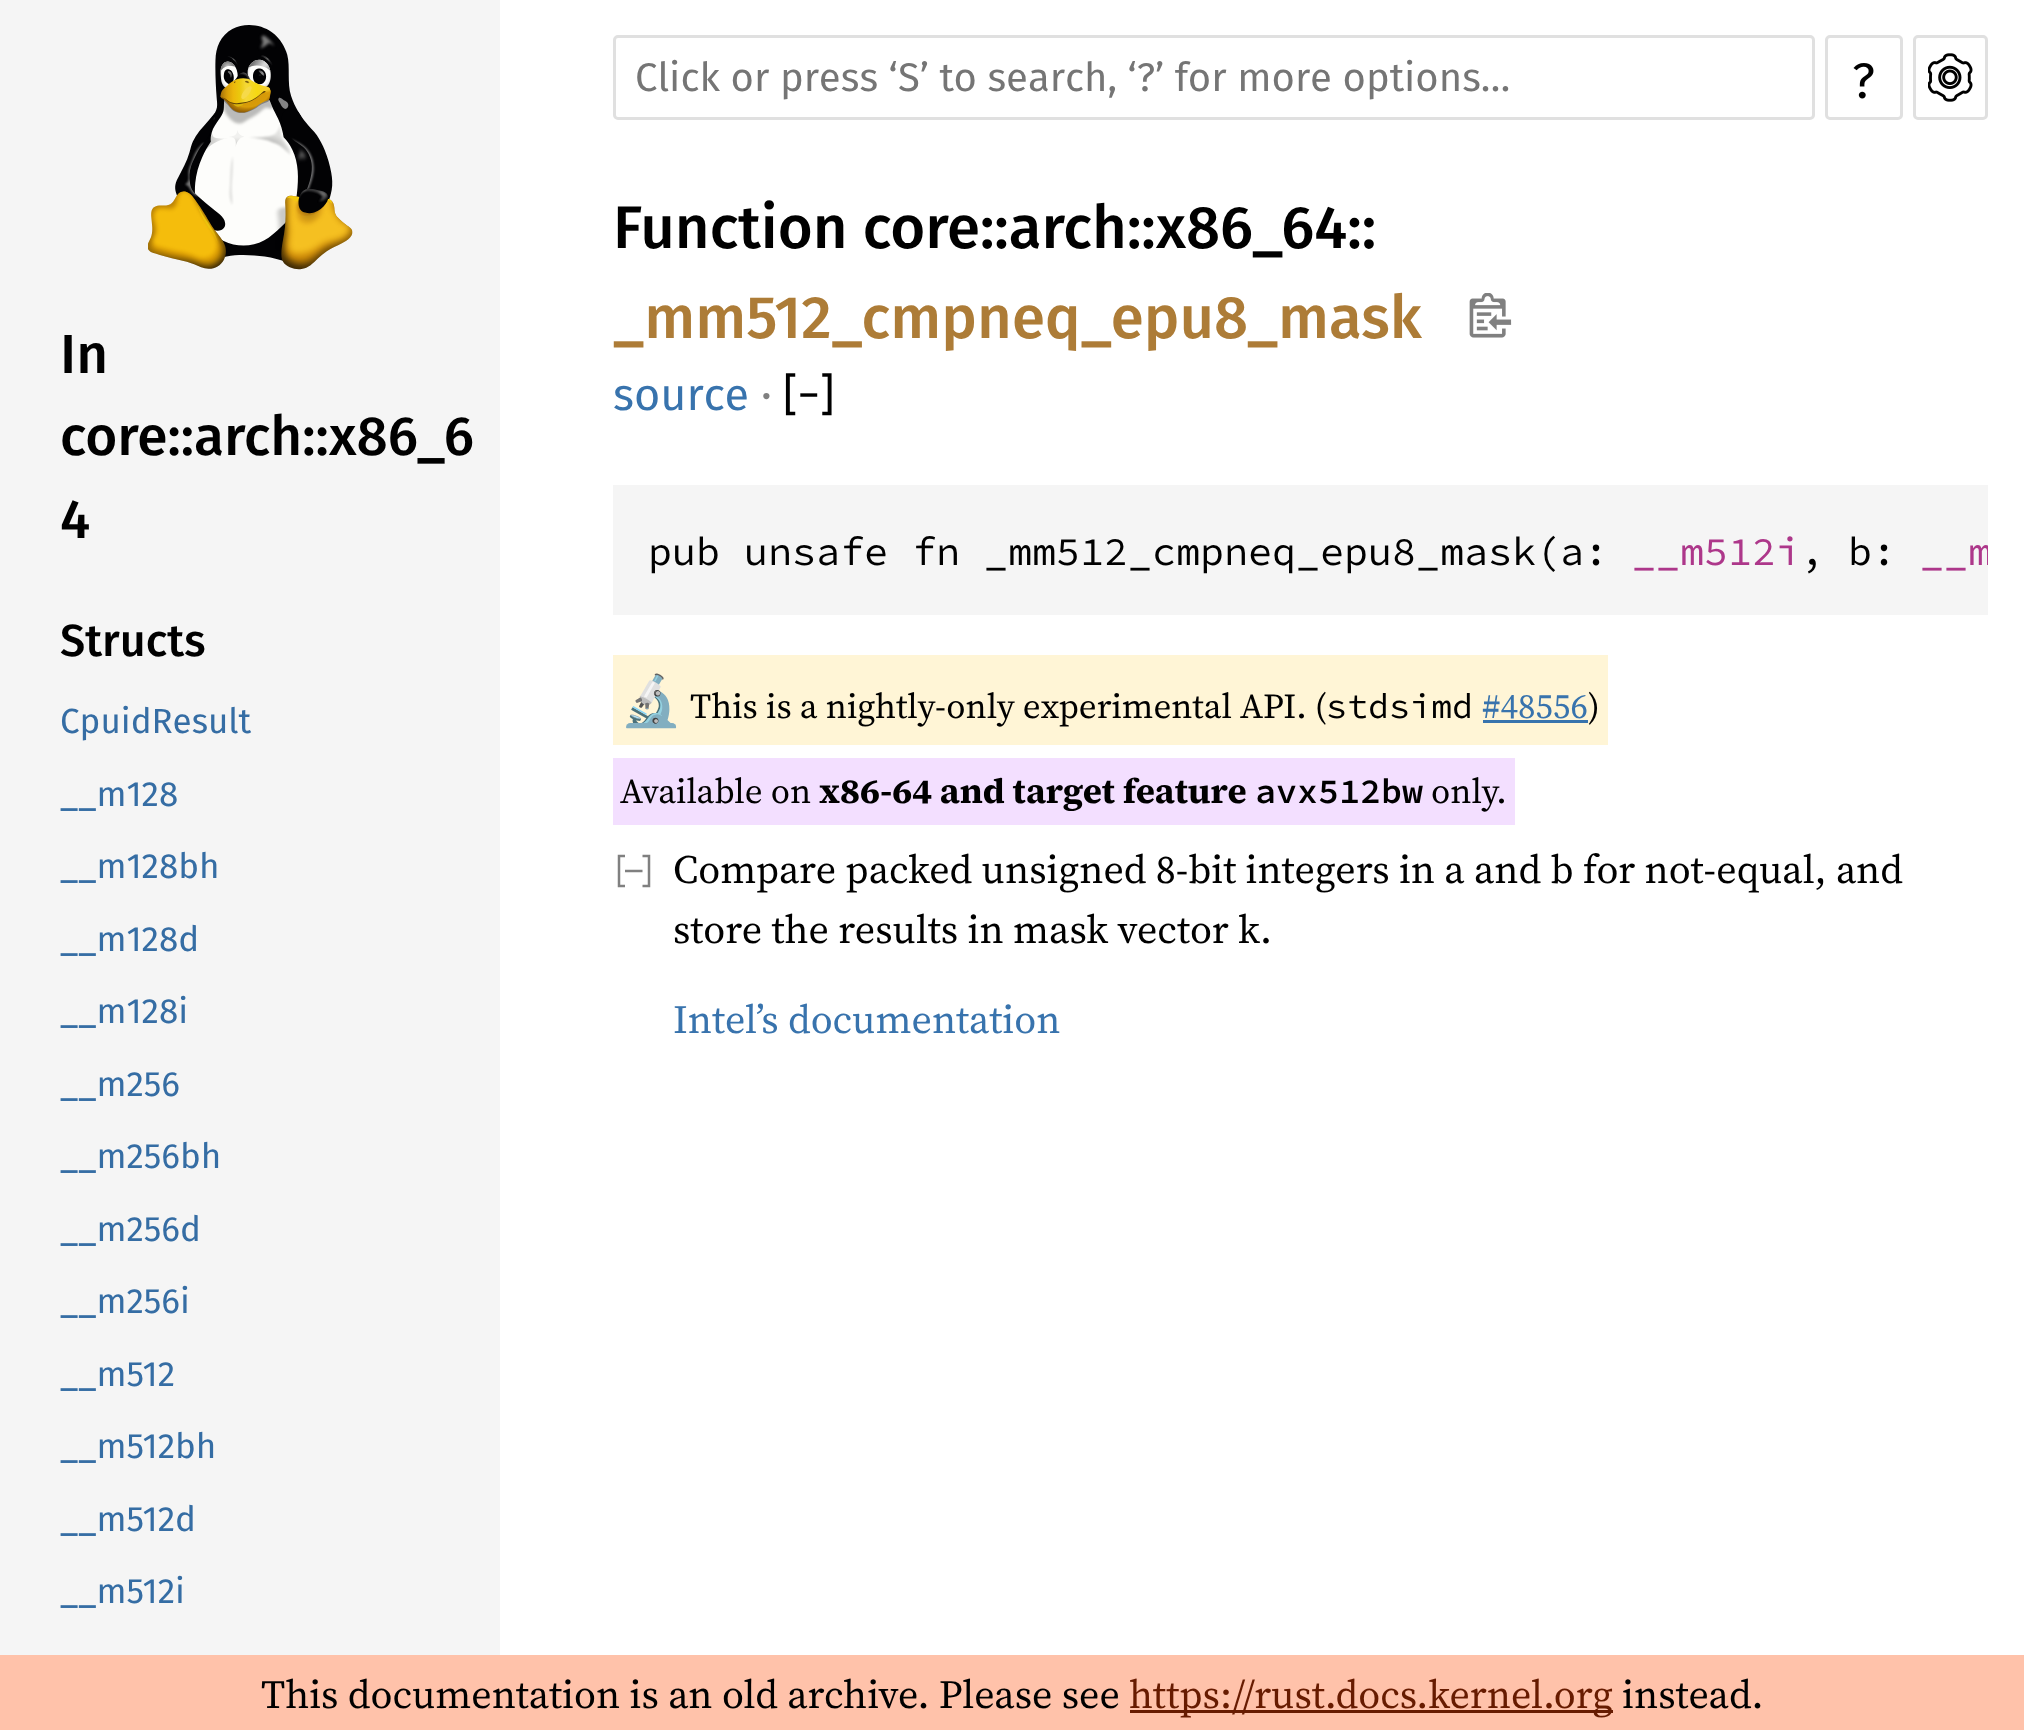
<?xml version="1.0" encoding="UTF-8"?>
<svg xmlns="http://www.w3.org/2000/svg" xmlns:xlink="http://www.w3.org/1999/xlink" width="2024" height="1730">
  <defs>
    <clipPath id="clip1"><rect x="613" y="485" width="1375" height="130" /></clipPath>
  </defs>
  <rect width="100%" height="100%" fill="#ffffff" />
  <rect width="500" height="1655" fill="#f5f5f5" />
  <image x="148" y="25" width="205" height="245" xlink:href="image1.png" />
  <rect x="614.5" y="36.5" width="1199" height="82" rx="3.5" fill="none" stroke="#e0e0e0" stroke-width="3" />
  <rect x="1826.5" y="36.5" width="75" height="82" rx="3.5" fill="none" stroke="#e0e0e0" stroke-width="3" />
  <rect x="1914.5" y="36.5" width="72" height="82" rx="3.5" fill="none" stroke="#e0e0e0" stroke-width="3" />
  <image x="1928" y="53" width="45" height="49" xlink:href="image2.png" />
  <image x="1469" y="293" width="43" height="45" xlink:href="image3.png" />
  <rect x="613" y="485" width="1375" height="130" fill="#f5f5f5" />
  <rect x="613" y="655" width="995" height="90" fill="#fff5d6" />
  <rect x="1483" y="720" width="105" height="3" fill="#3873ad" />
  <rect x="613" y="758" width="902" height="67" fill="#f3dfff" />
  <path d="M 625 856 h -6 v 30 h 6 m 17.5 -30 h 6.5 v 30 h -6.5 m -17.5 -15 h 17.5" fill="none" stroke="#808080" stroke-width="2.5" />
  <rect y="1655" width="2024" height="75" fill="#ffc2aa" />
  <rect x="1130" y="1710" width="483" height="3" fill="#671b00" />
  <text x="60" y="373" style="font-family: Fira Sans; font-size: 55px; font-weight: 500; fill: #000000">In</text>
  <text x="60" y="455" style="font-family: Fira Sans; font-size: 55px; font-weight: 500; fill: #000000">core::arch::x86_6</text>
  <text x="60" y="538" style="font-family: Fira Sans; font-size: 55px; font-weight: 500; fill: #000000">4</text>
  <text x="60" y="656" style="font-family: Fira Sans; font-size: 45px; font-weight: 500; fill: #000000">Structs</text>
  <text x="60" y="733" style="font-family: Fira Sans; font-size: 35px; fill: #356da4">CpuidResult</text>
  <text x="60" y="806" style="font-family: Fira Sans; font-size: 35px; fill: #356da4">__m128</text>
  <text x="60" y="878" style="font-family: Fira Sans; font-size: 35px; fill: #356da4">__m128bh</text>
  <text x="60" y="951" style="font-family: Fira Sans; font-size: 35px; fill: #356da4">__m128d</text>
  <text x="60" y="1023" style="font-family: Fira Sans; font-size: 35px; fill: #356da4">__m128i</text>
  <text x="60" y="1096" style="font-family: Fira Sans; font-size: 35px; fill: #356da4">__m256</text>
  <text x="60" y="1168" style="font-family: Fira Sans; font-size: 35px; fill: #356da4">__m256bh</text>
  <text x="60" y="1241" style="font-family: Fira Sans; font-size: 35px; fill: #356da4">__m256d</text>
  <text x="60" y="1313" style="font-family: Fira Sans; font-size: 35px; fill: #356da4">__m256i</text>
  <text x="60" y="1386" style="font-family: Fira Sans; font-size: 35px; fill: #356da4">__m512</text>
  <text x="60" y="1458" style="font-family: Fira Sans; font-size: 35px; fill: #356da4">__m512bh</text>
  <text x="60" y="1531" style="font-family: Fira Sans; font-size: 35px; fill: #356da4">__m512d</text>
  <text x="60" y="1603" style="font-family: Fira Sans; font-size: 35px; fill: #356da4">__m512i</text>
  <text x="635" y="91" style="font-family: Fira Sans; font-size: 40px; fill: #757575">Click or press ‘S’ to search, ‘?’ for more options…</text>
  <text x="1852" y="98" style="font-family: Fira Sans; font-size: 50px; fill: #000000">?</text>
  <text x="613" y="248" style="font-family: Fira Sans; font-size: 60px; font-weight: 500; fill: #000000">Function core::arch::x86_64::</text>
  <text x="613" y="338" style="font-family: Fira Sans; font-size: 60px; font-weight: 500; fill: #ad7c37">_mm512_cmpneq_epu8_mask</text>
  <text x="613" y="410" style="font-family: Fira Sans; font-size: 45px; fill: #3873ad">source</text>
  <text x="761" y="410" style="font-family: Fira Sans; font-size: 45px; fill: #808080">·</text>
  <text x="783" y="410" style="font-family: Fira Sans; font-size: 45px; fill: #000000">[−]</text>
  <text x="648" y="565" style="font-family: Source Code Pro; font-size: 40px; fill: #000000">pub unsafe fn _mm512_cmpneq_epu8_mask(a:</text>
  <text x="1632" y="565" style="font-family: Source Code Pro; font-size: 40px; fill: #ad378a">__m512i</text>
  <text x="1800" y="565" style="font-family: Source Code Pro; font-size: 40px; fill: #000000">, b:</text>
  <g clip-path="url(#clip1)">
    <text x="1920" y="565" style="font-family: Source Code Pro; font-size: 40px; fill: #ad378a">__m</text>
  </g>
  <text x="620" y="718" style="font-family: Noto Color Emoji; font-size: 50px; fill: #000000">🔬</text>
  <text x="690" y="718" style="font-family: 'Source Serif 4'; font-size: 35px; fill: #000000">This is a nightly-only experimental API. (</text>
  <text x="1326" y="718" style="font-family: Source Code Pro; font-size: 35px; fill: #000000">stdsimd</text>
  <text x="1482" y="718" style="font-family: 'Source Serif 4'; font-size: 35px; fill: #3873ad">#48556</text>
  <text x="1588" y="718" style="font-family: 'Source Serif 4'; font-size: 35px; fill: #000000">)</text>
  <text x="620" y="803" style="font-family: 'Source Serif 4'; font-size: 35px; fill: #000000">Available on</text>
  <text x="819" y="803" style="font-family: 'Source Serif 4'; font-size: 35px; font-weight: bold; fill: #000000">x86-64 and target feature</text>
  <text x="1255" y="803" style="font-family: Source Code Pro; font-size: 35px; font-weight: 600; fill: #000000">avx512bw</text>
  <text x="1431" y="803" style="font-family: 'Source Serif 4'; font-size: 35px; fill: #000000">only.</text>
  <text x="673" y="883" style="font-family: 'Source Serif 4'; font-size: 40px; fill: #000000">Compare packed unsigned 8-bit integers in a and b for not-equal, and</text>
  <text x="673" y="943" style="font-family: 'Source Serif 4'; font-size: 40px; fill: #000000">store the results in mask vector k.</text>
  <text x="673" y="1033" style="font-family: 'Source Serif 4'; font-size: 40px; fill: #3873ad">Intel’s documentation</text>
  <text x="261" y="1708" style="font-family: 'Source Serif 4'; font-size: 40px; fill: #000000">This documentation is an old archive. Please see</text>
  <text x="1129" y="1708" style="font-family: 'Source Serif 4'; font-size: 40px; fill: #671b00">https://rust.docs.kernel.org</text>
  <text x="1622" y="1708" style="font-family: 'Source Serif 4'; font-size: 40px; fill: #000000">instead.</text>
</svg>
